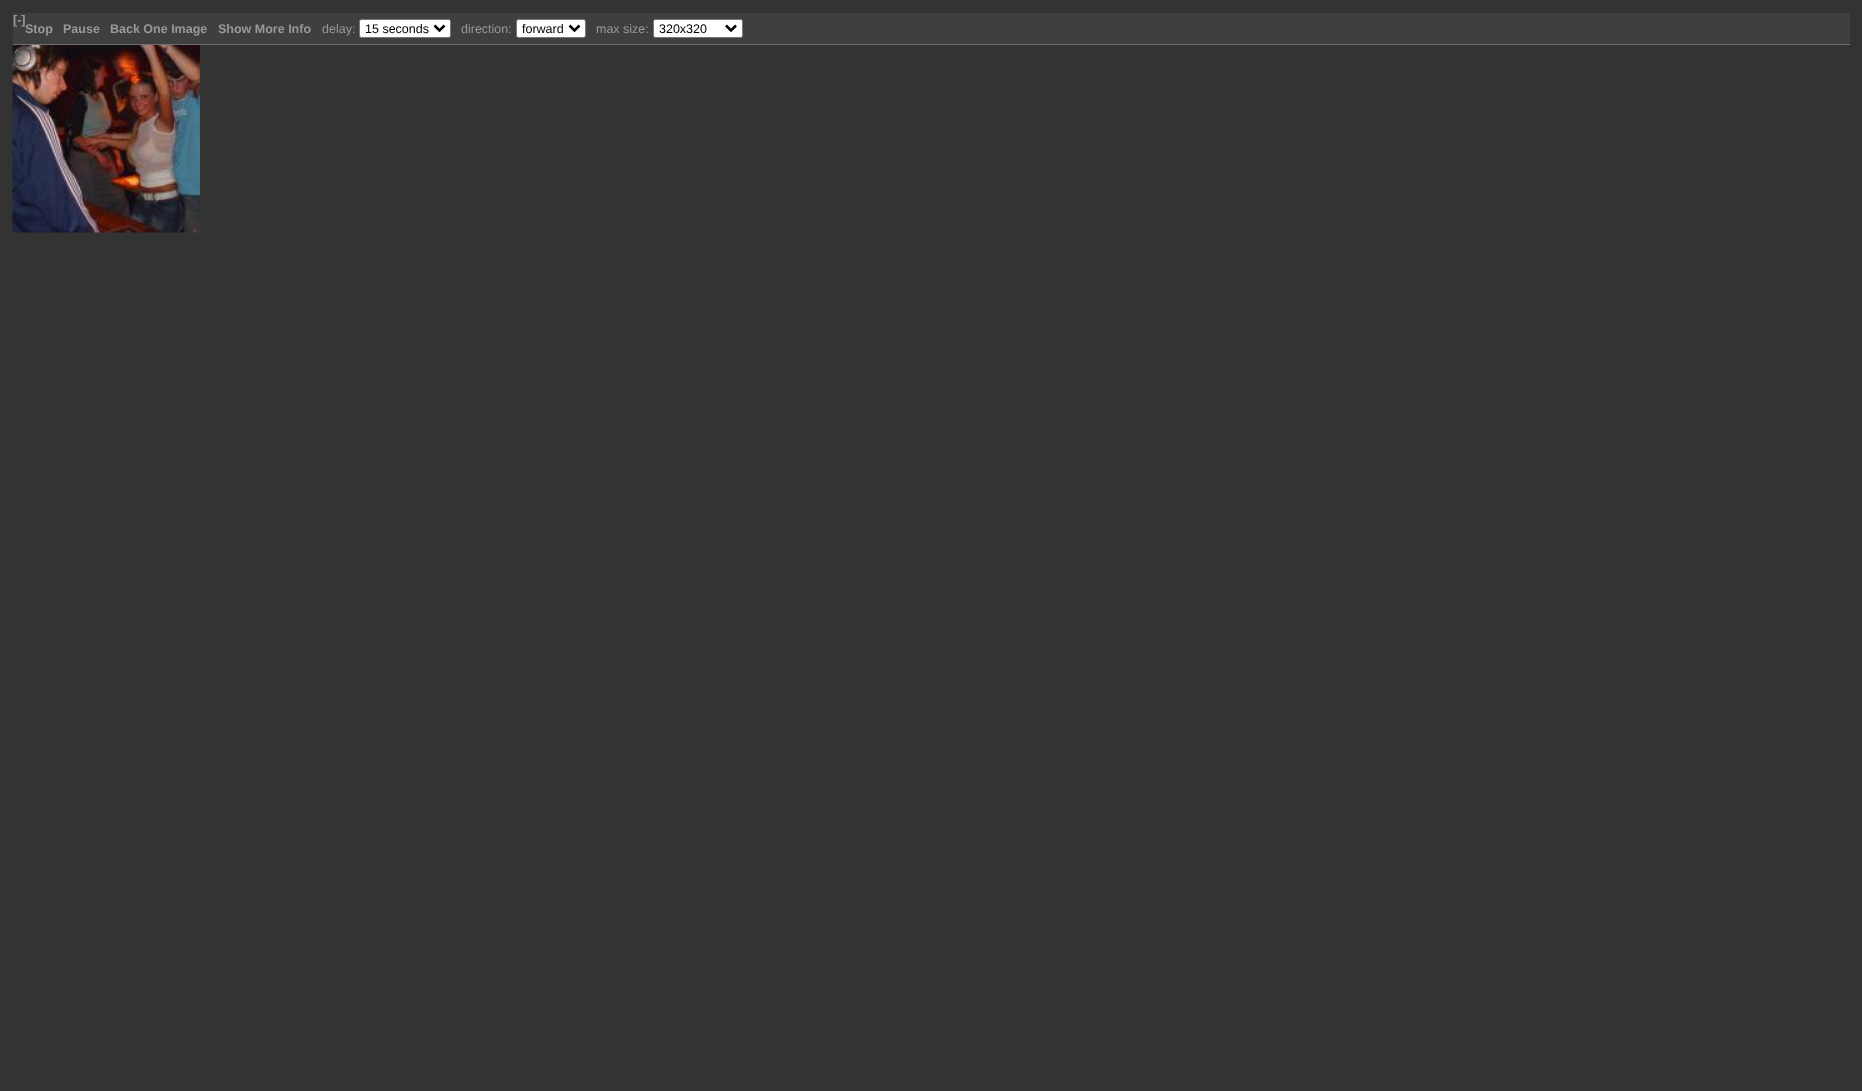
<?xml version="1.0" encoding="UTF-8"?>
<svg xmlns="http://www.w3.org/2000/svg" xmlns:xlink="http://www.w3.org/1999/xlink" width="1862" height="1091">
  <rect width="100%" height="100%" fill="#333333" />
  <rect x="13" y="13" width="1837" height="31" fill="#3f3f3f" />
  <rect x="13" y="44" width="1837" height="1" fill="#6f6f6f" />
  <rect x="359.5" y="19.5" width="91" height="18" rx="2" fill="#ffffff" stroke="#767676" />
  <path d="M 434.5 25.5 l 5 5 l 5 -5" fill="none" stroke="#000000" stroke-width="2.5" />
  <rect x="516.5" y="19.5" width="69" height="18" rx="2" fill="#ffffff" stroke="#767676" />
  <path d="M 569.5 25.5 l 5 5 l 5 -5" fill="none" stroke="#000000" stroke-width="2.5" />
  <rect x="653.5" y="19.5" width="89" height="18" rx="2" fill="#ffffff" stroke="#767676" />
  <path d="M 726 25.5 l 5 5 l 5 -5" fill="none" stroke="#000000" stroke-width="2.5" />
  <image x="12" y="45" width="188" height="188" xlink:href="image1.png" />
  <text x="13" y="24" style="font-family: Liberation Sans; font-size: 12.5px; font-weight: bold; fill: #999999">[-]</text>
  <text x="25" y="33" style="font-family: Liberation Sans; font-size: 12.5px; font-weight: bold; fill: #999999">Stop</text>
  <text x="63" y="33" style="font-family: Liberation Sans; font-size: 12.5px; font-weight: bold; fill: #999999">Pause</text>
  <text x="110" y="33" style="font-family: Liberation Sans; font-size: 12.5px; font-weight: bold; fill: #999999">Back One Image</text>
  <text x="218" y="33" style="font-family: Liberation Sans; font-size: 12.5px; font-weight: bold; fill: #999999">Show More Info</text>
  <text x="322" y="33" style="font-family: Liberation Sans; font-size: 12.5px; fill: #999999">delay:</text>
  <text x="365" y="33" style="font-family: Liberation Sans; font-size: 12.5px; fill: #000000">15 seconds</text>
  <text x="461" y="33" style="font-family: Liberation Sans; font-size: 12.5px; fill: #999999">direction:</text>
  <text x="522" y="33" style="font-family: Liberation Sans; font-size: 12.5px; fill: #000000">forward</text>
  <text x="596" y="33" style="font-family: Liberation Sans; font-size: 12.5px; fill: #999999">max size:</text>
  <text x="659" y="33" style="font-family: Liberation Sans; font-size: 12.5px; fill: #000000">320x320</text>
</svg>
